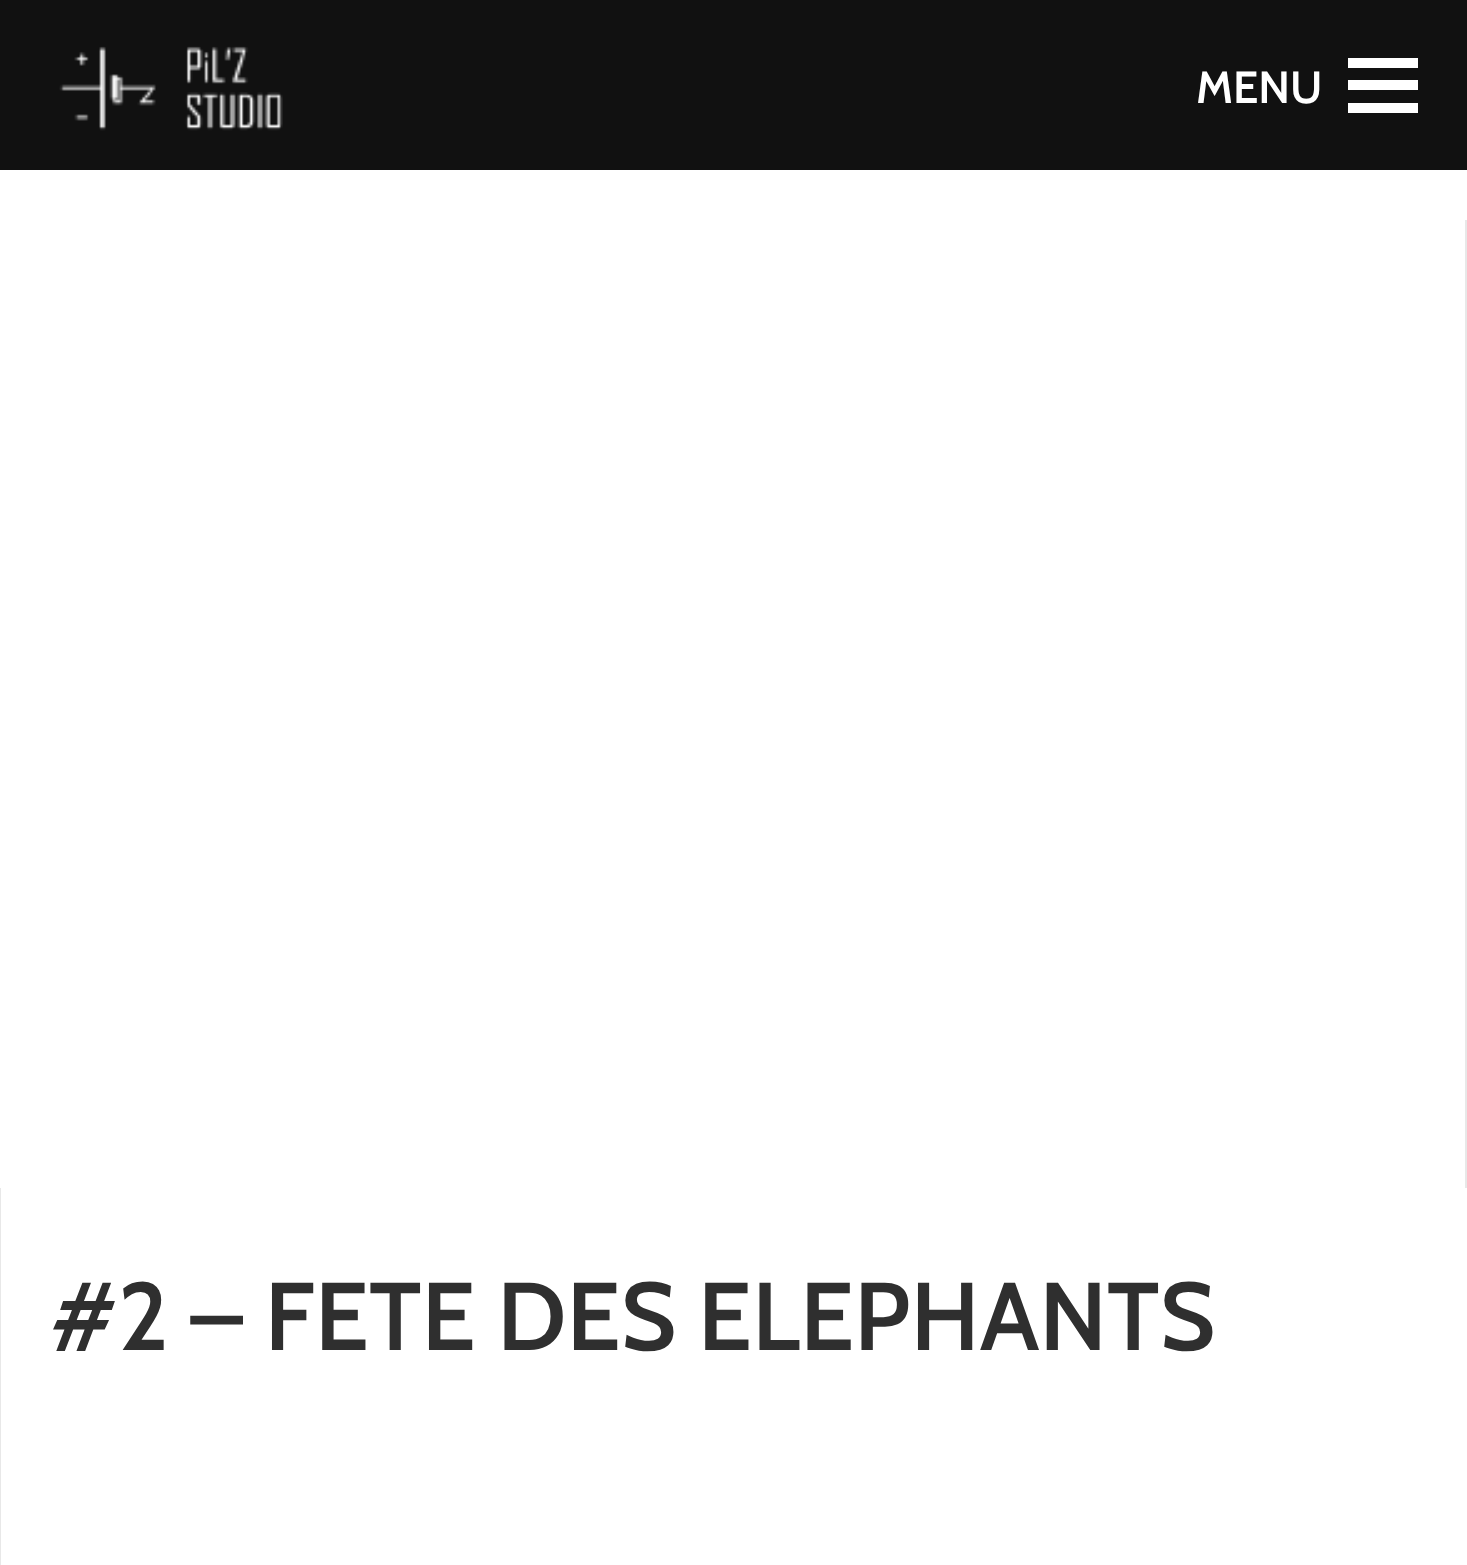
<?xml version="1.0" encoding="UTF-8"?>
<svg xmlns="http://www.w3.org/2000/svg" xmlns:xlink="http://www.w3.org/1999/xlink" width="1467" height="1565">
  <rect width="100%" height="100%" fill="#ffffff" />
  <rect width="1467" height="170" fill="#111111" />
  <image x="59" y="46" width="224" height="85" xlink:href="image1.png" />
  <rect x="1348" y="58" width="70" height="10" fill="#ffffff" />
  <rect x="1348" y="80" width="70" height="10" fill="#ffffff" />
  <rect x="1348" y="103" width="70" height="10" fill="#ffffff" />
  <rect x="1465" y="220" width="2" height="968" fill="#e8e8e8" />
  <rect y="1188" width="1" height="377" fill="#e8e8e8" />
  <text x="1196" y="103" style="font-family: Cabin; font-size: 45px; font-weight: 600; fill: #ffffff">MENU</text>
  <text x="50" y="1350" style="font-family: Cabin; font-size: 96px; font-weight: 600; fill: #2f2f2f">#2 – FETE DES ELEPHANTS</text>
</svg>
